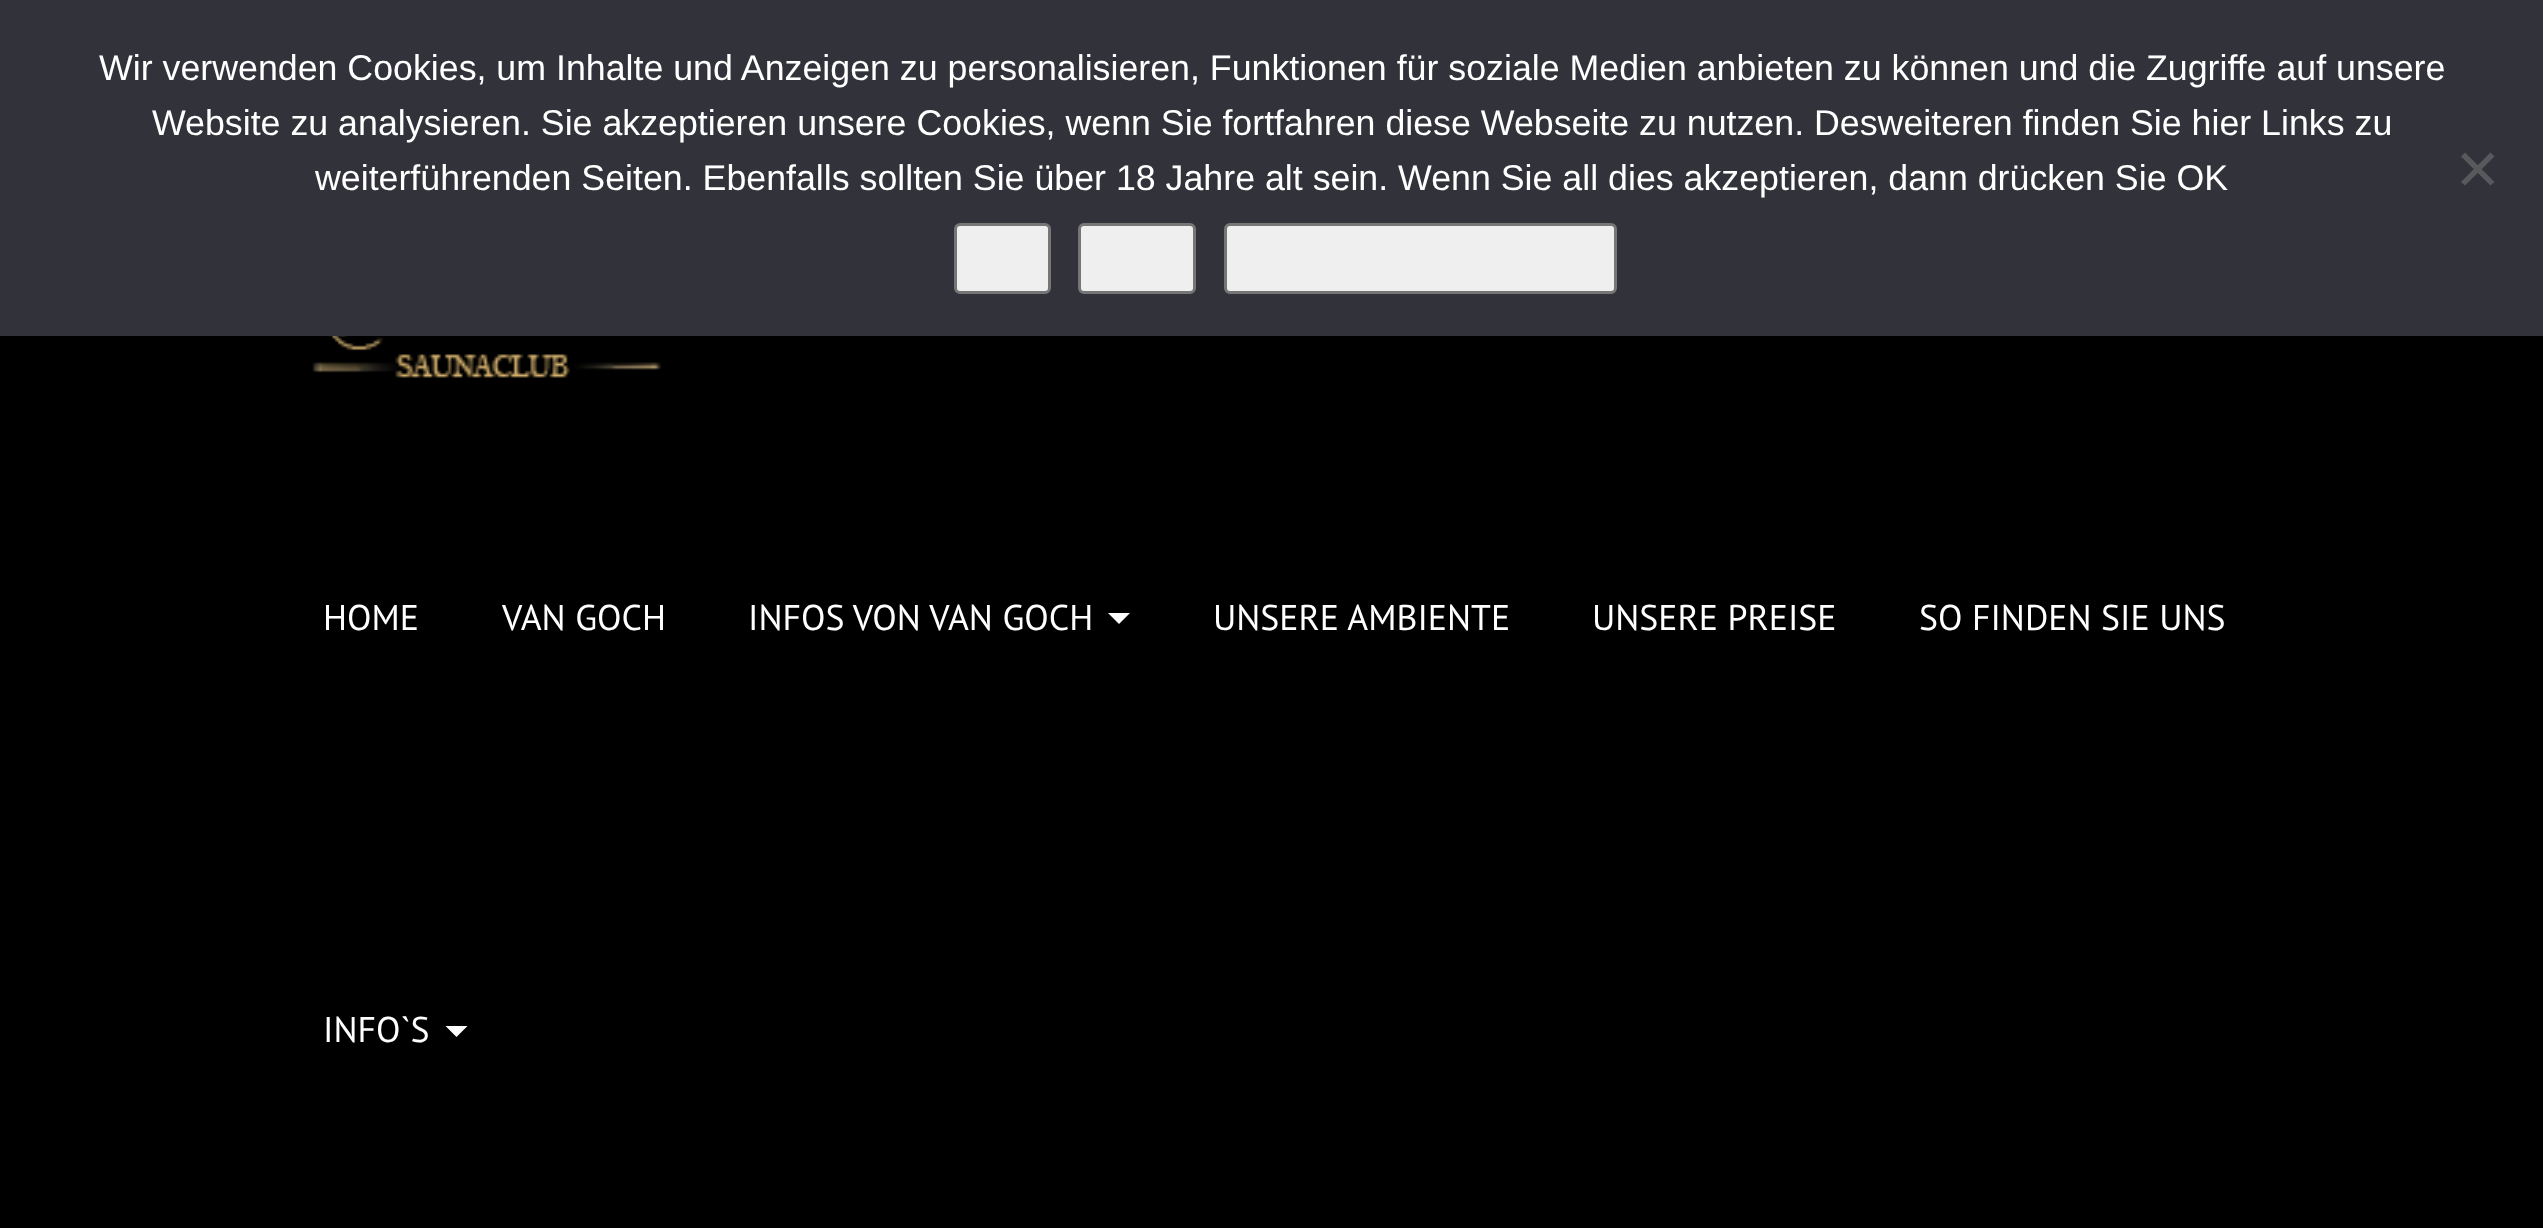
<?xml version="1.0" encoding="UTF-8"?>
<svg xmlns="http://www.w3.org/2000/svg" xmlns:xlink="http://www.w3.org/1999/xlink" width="2543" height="1228">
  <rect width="100%" height="100%" fill="#000000" />
  <rect width="2543" height="336" fill="#32323a" />
  <path d="M 2490.5 152.5 l 4 4 l -29.5 29 l -4 -3.5 z" fill="#59595d" />
  <path d="M 2461 156.5 l 4 -4 l 29.5 29.5 l -4 3.5 z" fill="#59595d" />
  <rect x="955.5" y="224.5" width="94" height="68" rx="4.5" fill="#efefef" stroke="#767676" stroke-width="3" />
  <rect x="1079.5" y="224.5" width="115" height="68" rx="4.5" fill="#efefef" stroke="#767676" stroke-width="3" />
  <rect x="1225.5" y="224.5" width="390" height="68" rx="4.5" fill="#efefef" stroke="#767676" stroke-width="3" />
  <image x="312" y="336" width="349" height="42" xlink:href="image1.png" />
  <path d="M 1108 613 h 22 l -11 11 z" fill="#ffffff" />
  <path d="M 445.5 1026 h 22 l -11 11 z" fill="#ffffff" />
  <text x="99" y="80" style="font-family: Liberation Sans; font-size: 35.75px; fill: #ffffff">Wir verwenden Cookies, um Inhalte und Anzeigen zu personalisieren, Funktionen für soziale Medien anbieten zu können und die Zugriffe auf unsere</text>
  <text x="152" y="135" style="font-family: Liberation Sans; font-size: 35.75px; fill: #ffffff">Website zu analysieren. Sie akzeptieren unsere Cookies, wenn Sie fortfahren diese Webseite zu nutzen. Desweiteren finden Sie hier Links zu</text>
  <text x="315" y="190" style="font-family: Liberation Sans; font-size: 35.75px; fill: #ffffff">weiterführenden Seiten. Ebenfalls sollten Sie über 18 Jahre alt sein. Wenn Sie all dies akzeptieren, dann drücken Sie OK</text>
  <text x="323" y="630" style="font-family: PT Sans; font-size: 35.75px; fill: #ffffff">HOME</text>
  <text x="502" y="630" style="font-family: PT Sans; font-size: 35.75px; fill: #ffffff">VAN GOCH</text>
  <text x="748" y="630" style="font-family: PT Sans; font-size: 35.75px; fill: #ffffff">INFOS VON VAN GOCH</text>
  <text x="1213" y="630" style="font-family: PT Sans; font-size: 35.75px; fill: #ffffff">UNSERE AMBIENTE</text>
  <text x="1592" y="630" style="font-family: PT Sans; font-size: 35.75px; fill: #ffffff">UNSERE PREISE</text>
  <text x="1919" y="630" style="font-family: PT Sans; font-size: 35.75px; fill: #ffffff">SO FINDEN SIE UNS</text>
  <text x="323" y="1042" style="font-family: PT Sans; font-size: 35.75px; fill: #ffffff">INFO`S</text>
</svg>
